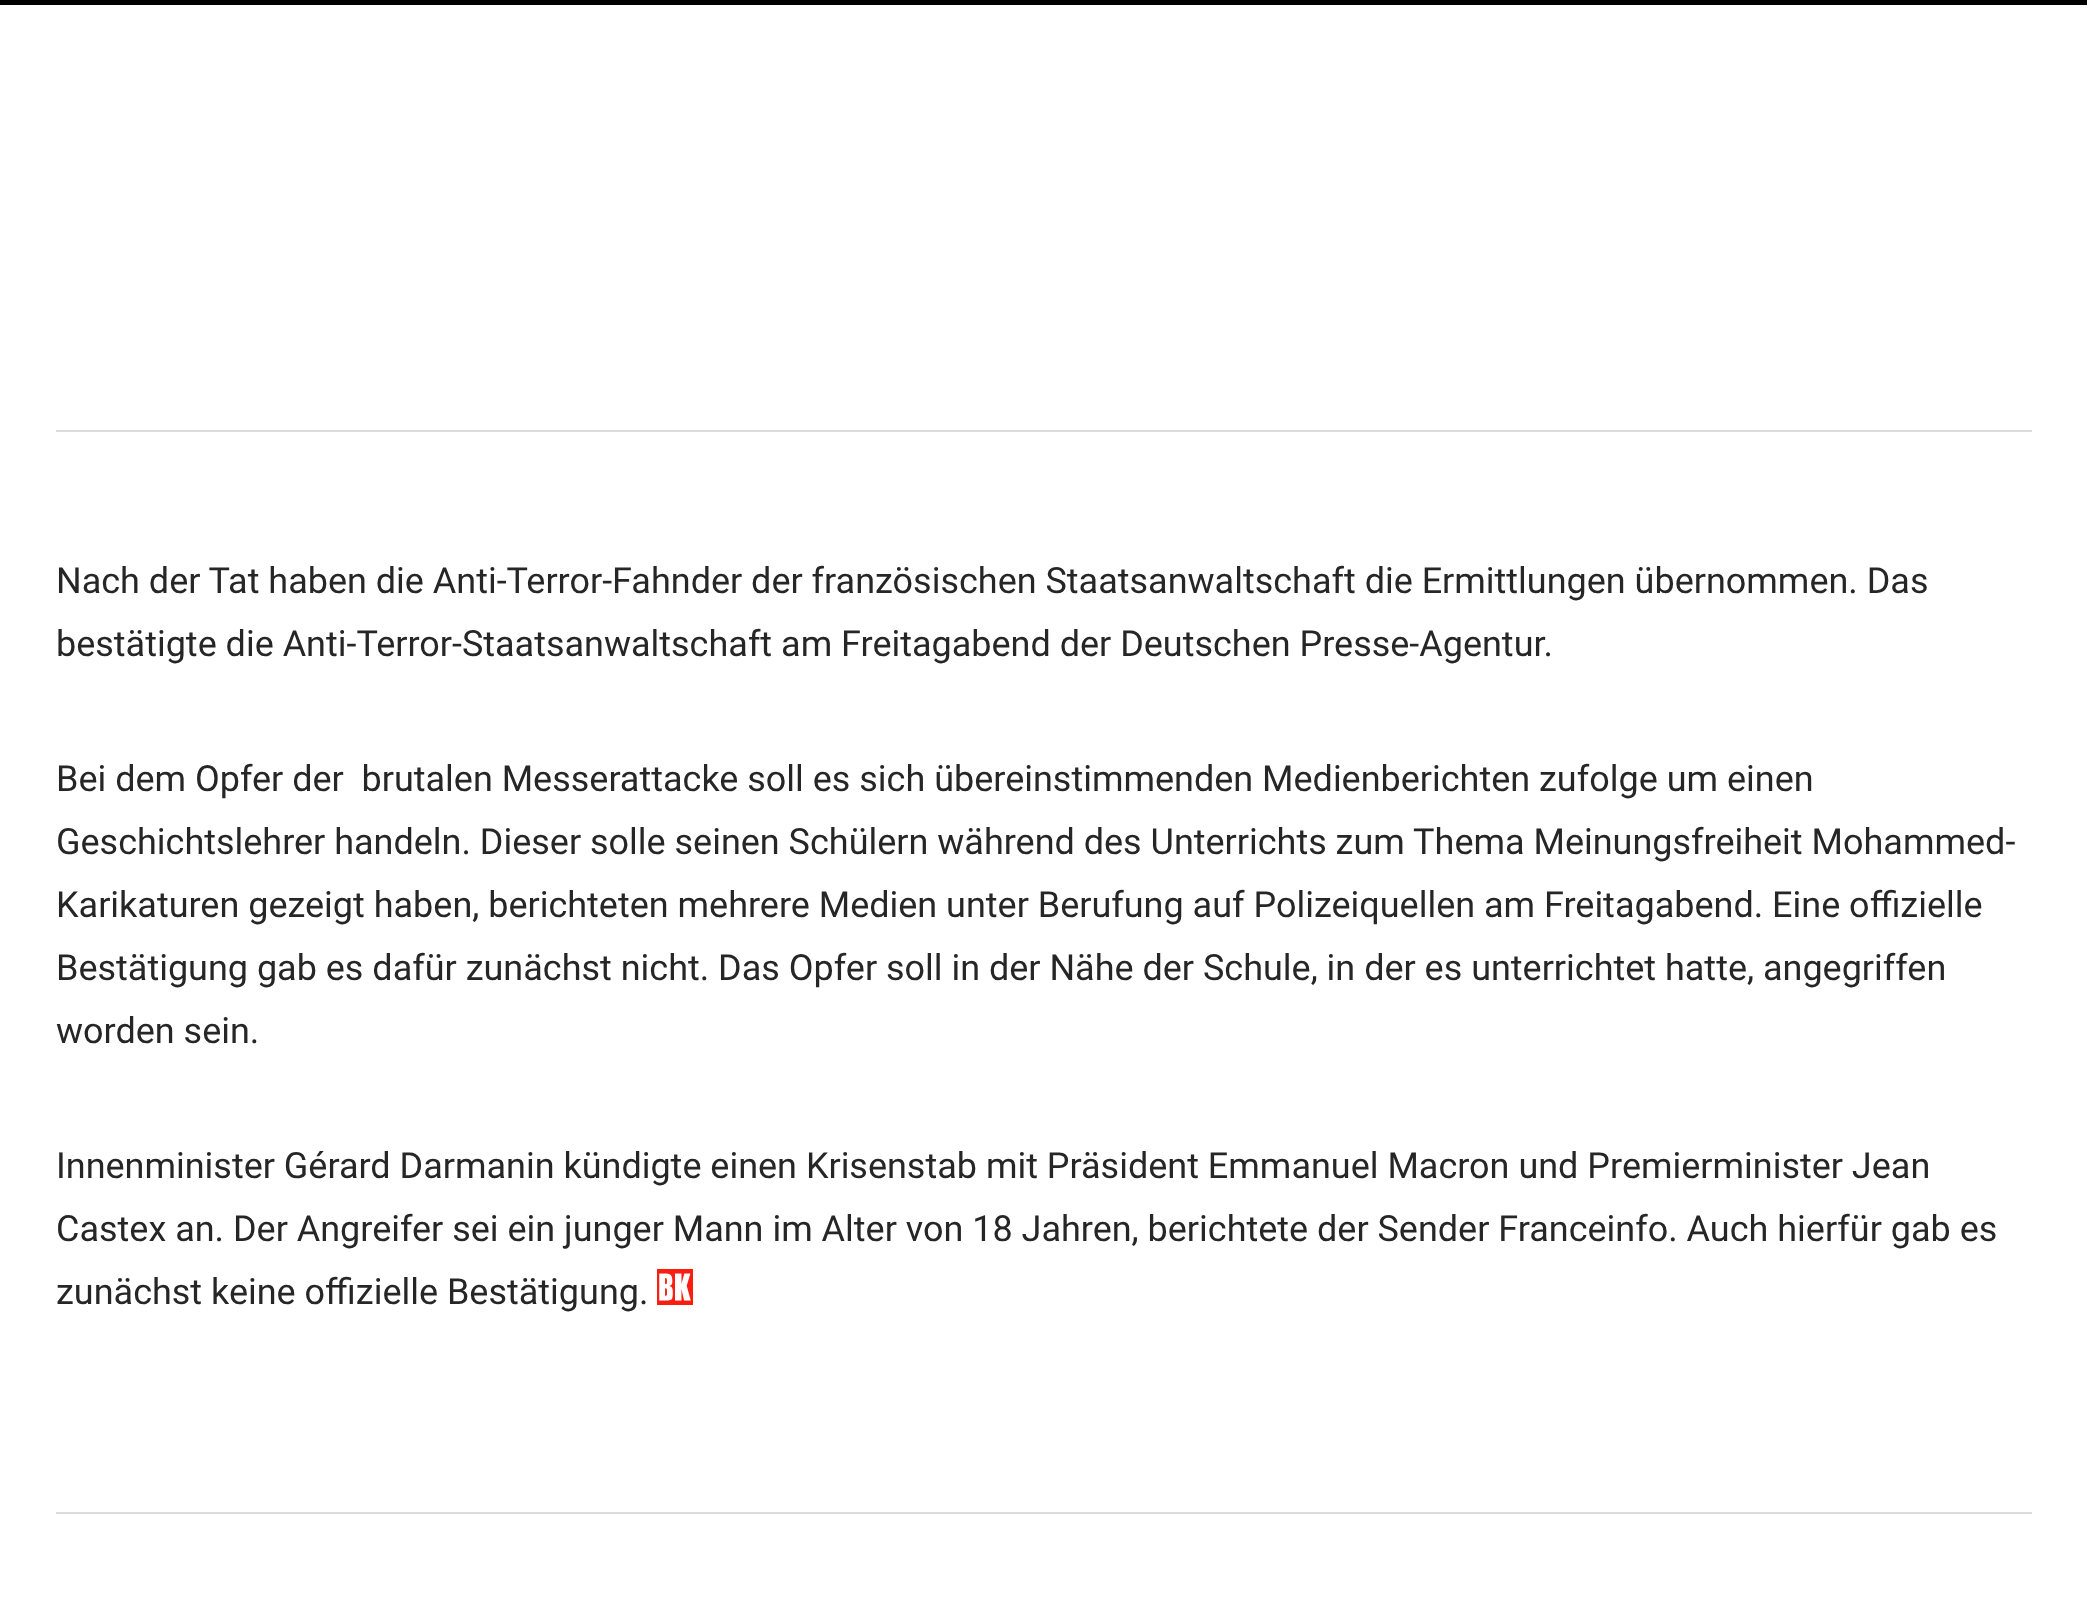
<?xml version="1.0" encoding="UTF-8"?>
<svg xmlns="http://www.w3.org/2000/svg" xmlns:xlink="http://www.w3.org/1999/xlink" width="2087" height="1619">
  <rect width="100%" height="100%" fill="#ffffff" />
  <rect width="2087" height="5" fill="#000000" />
  <rect x="56" y="430" width="1976" height="2" fill="#dcdcdf" />
  <image x="657" y="1269" width="36" height="36" xlink:href="image1.png" />
  <rect x="56" y="1512" width="1976" height="2" fill="#dcdcdf" />
  <text x="56" y="593" style="font-family: Roboto; font-size: 36px; fill: #262626">Nach der Tat haben die Anti-Terror-Fahnder der französischen Staatsanwaltschaft die Ermittlungen übernommen. Das</text>
  <text x="56" y="656" style="font-family: Roboto; font-size: 36px; fill: #262626">bestätigte die Anti-Terror-Staatsanwaltschaft am Freitagabend der Deutschen Presse-Agentur.</text>
  <text x="56" y="791" style="font-family: Roboto; font-size: 36px; fill: #262626" xml:space="preserve">Bei dem Opfer der  brutalen Messerattacke soll es sich übereinstimmenden Medienberichten zufolge um einen</text>
  <text x="56" y="854" style="font-family: Roboto; font-size: 36px; fill: #262626">Geschichtslehrer handeln. Dieser solle seinen Schülern während des Unterrichts zum Thema Meinungsfreiheit Mohammed-</text>
  <text x="56" y="917" style="font-family: Roboto; font-size: 36px; fill: #262626">Karikaturen gezeigt haben, berichteten mehrere Medien unter Berufung auf Polizeiquellen am Freitagabend. Eine offizielle</text>
  <text x="56" y="980" style="font-family: Roboto; font-size: 36px; fill: #262626">Bestätigung gab es dafür zunächst nicht. Das Opfer soll in der Nähe der Schule, in der es unterrichtet hatte, angegriffen</text>
  <text x="56" y="1043" style="font-family: Roboto; font-size: 36px; fill: #262626">worden sein.</text>
  <text x="56" y="1178" style="font-family: Roboto; font-size: 36px; fill: #262626">Innenminister Gérard Darmanin kündigte einen Krisenstab mit Präsident Emmanuel Macron und Premierminister Jean</text>
  <text x="56" y="1241" style="font-family: Roboto; font-size: 36px; fill: #262626">Castex an. Der Angreifer sei ein junger Mann im Alter von 18 Jahren, berichtete der Sender Franceinfo. Auch hierfür gab es</text>
  <text x="56" y="1304" style="font-family: Roboto; font-size: 36px; fill: #262626">zunächst keine offizielle Bestätigung.</text>
</svg>
